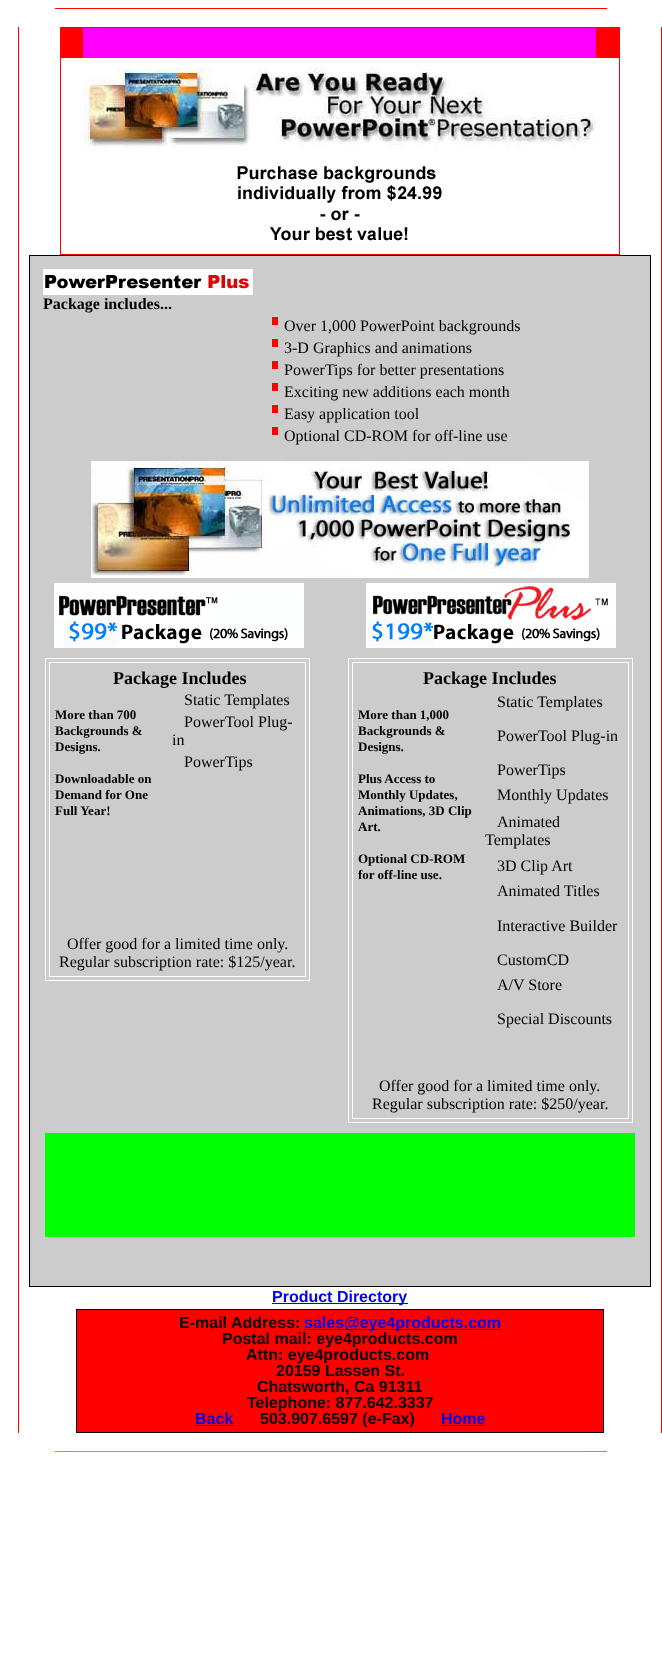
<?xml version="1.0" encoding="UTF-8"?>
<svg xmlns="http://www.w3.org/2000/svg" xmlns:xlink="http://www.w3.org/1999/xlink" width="662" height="1672">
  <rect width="100%" height="100%" fill="#ffffff" />
  <rect x="55" y="8" width="552" height="1" fill="#ff0000" />
  <rect x="18" y="27" width="1" height="1406" fill="#ff0000" />
  <rect x="60" y="27" width="560" height="228" fill="#ff0000" />
  <rect x="83" y="28" width="513" height="30" fill="#ff00ff" />
  <rect x="61" y="58" width="558" height="196" fill="#ffffff" />
  <image x="84" y="68" width="511" height="80" xlink:href="image1.png" />
  <image x="237" y="166" width="205" height="75" xlink:href="image2.png" />
  <rect x="29" y="255" width="622" height="1032" fill="#000000" />
  <rect x="30" y="256" width="620" height="1030" fill="#cccccc" />
  <image x="43" y="269" width="210" height="26" xlink:href="image3.png" />
  <rect x="272" y="317" width="6" height="8" fill="#fd0402" />
  <rect x="272" y="339" width="6" height="8" fill="#fd0402" />
  <rect x="272" y="361" width="6" height="8" fill="#fd0402" />
  <rect x="272" y="383" width="6" height="8" fill="#fd0402" />
  <rect x="272" y="405" width="6" height="8" fill="#fd0402" />
  <rect x="272" y="427" width="6" height="8" fill="#fd0402" />
  <image x="91" y="461" width="498" height="117" xlink:href="image4.png" />
  <image x="54" y="583" width="250" height="65" xlink:href="image5.png" />
  <image x="366" y="583" width="250" height="65" xlink:href="image6.png" />
  <rect x="45.5" y="658.5" width="264" height="322" fill="none" stroke="#ffffff" />
  <rect x="49.5" y="662.5" width="256" height="314" fill="none" stroke="#ffffff" />
  <rect x="348.5" y="658.5" width="284" height="464" fill="none" stroke="#ffffff" />
  <rect x="352.5" y="662.5" width="276" height="456" fill="none" stroke="#ffffff" />
  <rect x="45" y="1133" width="590" height="104" fill="#00ff00" />
  <rect x="272" y="1303" width="136" height="1" fill="#0000ee" />
  <rect x="76" y="1309" width="528" height="124" fill="#000000" />
  <rect x="77" y="1310" width="526" height="122" fill="#ff0000" />
  <rect x="304" y="1329" width="197" height="1" fill="#0000ee" />
  <rect x="195" y="1425" width="38" height="1" fill="#0000ee" />
  <rect x="441" y="1425" width="44" height="1" fill="#0000ee" />
  <rect x="661" y="27" width="1" height="1406" fill="#ff0000" />
  <rect x="55" y="1451" width="552" height="1" fill="#0bcece" />
  <text x="43" y="309" style="font-family: Liberation Serif; font-size: 16px; font-weight: bold; fill: #000000">Package includes...</text>
  <text x="284" y="331" style="font-family: Liberation Serif; font-size: 16px; fill: #000000">Over 1,000 PowerPoint backgrounds</text>
  <text x="284" y="353" style="font-family: Liberation Serif; font-size: 16px; fill: #000000">3-D Graphics and animations</text>
  <text x="284" y="375" style="font-family: Liberation Serif; font-size: 16px; fill: #000000">PowerTips for better presentations</text>
  <text x="284" y="397" style="font-family: Liberation Serif; font-size: 16px; fill: #000000">Exciting new additions each month</text>
  <text x="284" y="419" style="font-family: Liberation Serif; font-size: 16px; fill: #000000">Easy application tool</text>
  <text x="284" y="441" style="font-family: Liberation Serif; font-size: 16px; fill: #000000">Optional CD-ROM for off-line use</text>
  <text x="113" y="684" style="font-family: Liberation Serif; font-size: 18px; font-weight: bold; fill: #000000">Package Includes</text>
  <text x="55" y="719" style="font-family: Liberation Serif; font-size: 13px; font-weight: bold; fill: #000000">More than 700</text>
  <text x="55" y="735" style="font-family: Liberation Serif; font-size: 13px; font-weight: bold; fill: #000000">Backgrounds &amp;</text>
  <text x="55" y="751" style="font-family: Liberation Serif; font-size: 13px; font-weight: bold; fill: #000000">Designs.</text>
  <text x="55" y="783" style="font-family: Liberation Serif; font-size: 13px; font-weight: bold; fill: #000000">Downloadable on</text>
  <text x="55" y="799" style="font-family: Liberation Serif; font-size: 13px; font-weight: bold; fill: #000000">Demand for One</text>
  <text x="55" y="815" style="font-family: Liberation Serif; font-size: 13px; font-weight: bold; fill: #000000">Full Year!</text>
  <text x="184" y="705" style="font-family: Liberation Serif; font-size: 16px; fill: #000000">Static Templates</text>
  <text x="184" y="727" style="font-family: Liberation Serif; font-size: 16px; fill: #000000">PowerTool Plug-</text>
  <text x="172" y="745" style="font-family: Liberation Serif; font-size: 16px; fill: #000000">in</text>
  <text x="184" y="767" style="font-family: Liberation Serif; font-size: 16px; fill: #000000">PowerTips</text>
  <text x="67" y="949" style="font-family: Liberation Serif; font-size: 16px; fill: #000000">Offer good for a limited time only.</text>
  <text x="59" y="967" style="font-family: Liberation Serif; font-size: 16px; fill: #000000">Regular subscription rate: $125/year.</text>
  <text x="423" y="684" style="font-family: Liberation Serif; font-size: 18px; font-weight: bold; fill: #000000">Package Includes</text>
  <text x="358" y="719" style="font-family: Liberation Serif; font-size: 13px; font-weight: bold; fill: #000000">More than 1,000</text>
  <text x="358" y="735" style="font-family: Liberation Serif; font-size: 13px; font-weight: bold; fill: #000000">Backgrounds &amp;</text>
  <text x="358" y="751" style="font-family: Liberation Serif; font-size: 13px; font-weight: bold; fill: #000000">Designs.</text>
  <text x="358" y="783" style="font-family: Liberation Serif; font-size: 13px; font-weight: bold; fill: #000000">Plus Access to</text>
  <text x="358" y="799" style="font-family: Liberation Serif; font-size: 13px; font-weight: bold; fill: #000000">Monthly Updates,</text>
  <text x="358" y="815" style="font-family: Liberation Serif; font-size: 13px; font-weight: bold; fill: #000000">Animations, 3D Clip</text>
  <text x="358" y="831" style="font-family: Liberation Serif; font-size: 13px; font-weight: bold; fill: #000000">Art.</text>
  <text x="358" y="863" style="font-family: Liberation Serif; font-size: 13px; font-weight: bold; fill: #000000">Optional CD-ROM</text>
  <text x="358" y="879" style="font-family: Liberation Serif; font-size: 13px; font-weight: bold; fill: #000000">for off-line use.</text>
  <text x="497" y="707" style="font-family: Liberation Serif; font-size: 16px; fill: #000000">Static Templates</text>
  <text x="497" y="741" style="font-family: Liberation Serif; font-size: 16px; fill: #000000">PowerTool Plug-in</text>
  <text x="497" y="775" style="font-family: Liberation Serif; font-size: 16px; fill: #000000">PowerTips</text>
  <text x="497" y="800" style="font-family: Liberation Serif; font-size: 16px; fill: #000000">Monthly Updates</text>
  <text x="497" y="827" style="font-family: Liberation Serif; font-size: 16px; fill: #000000">Animated</text>
  <text x="485" y="845" style="font-family: Liberation Serif; font-size: 16px; fill: #000000">Templates</text>
  <text x="497" y="871" style="font-family: Liberation Serif; font-size: 16px; fill: #000000">3D Clip Art</text>
  <text x="497" y="896" style="font-family: Liberation Serif; font-size: 16px; fill: #000000">Animated Titles</text>
  <text x="497" y="931" style="font-family: Liberation Serif; font-size: 16px; fill: #000000">Interactive Builder</text>
  <text x="497" y="965" style="font-family: Liberation Serif; font-size: 16px; fill: #000000">CustomCD</text>
  <text x="497" y="990" style="font-family: Liberation Serif; font-size: 16px; fill: #000000">A/V Store</text>
  <text x="497" y="1024" style="font-family: Liberation Serif; font-size: 16px; fill: #000000">Special Discounts</text>
  <text x="379" y="1091" style="font-family: Liberation Serif; font-size: 16px; fill: #000000">Offer good for a limited time only.</text>
  <text x="372" y="1109" style="font-family: Liberation Serif; font-size: 16px; fill: #000000">Regular subscription rate: $250/year.</text>
  <text x="272" y="1302" style="font-family: Liberation Sans; font-size: 16px; font-weight: bold; fill: #0000ee">Product Directory</text>
  <text x="179" y="1328" style="font-family: Liberation Sans; font-size: 16px; font-weight: bold; fill: #000000">E-mail</text>
  <text x="231" y="1328" style="font-family: Liberation Sans; font-size: 16px; font-weight: bold; fill: #000000">Address:</text>
  <text x="304" y="1328" style="font-family: Liberation Sans; font-size: 16px; font-weight: bold; fill: #0000ee">sales@eye4products.com</text>
  <text x="222" y="1344" style="font-family: Liberation Sans; font-size: 16px; font-weight: bold; fill: #000000">Postal mail: eye4products.com</text>
  <text x="246" y="1360" style="font-family: Liberation Sans; font-size: 16px; font-weight: bold; fill: #000000">Attn: eye4products.com</text>
  <text x="276" y="1376" style="font-family: Liberation Sans; font-size: 16px; font-weight: bold; fill: #000000">20159 Lassen St.</text>
  <text x="257" y="1392" style="font-family: Liberation Sans; font-size: 16px; font-weight: bold; fill: #000000">Chatsworth, Ca 91311</text>
  <text x="247" y="1408" style="font-family: Liberation Sans; font-size: 16px; font-weight: bold; fill: #000000">Telephone: 877.642.3337</text>
  <text x="195" y="1424" style="font-family: Liberation Sans; font-size: 16px; font-weight: bold; fill: #0000ee">Back</text>
  <text x="260" y="1424" style="font-family: Liberation Sans; font-size: 16px; font-weight: bold; fill: #000000">503.907.6597 (e-Fax)</text>
  <text x="441" y="1424" style="font-family: Liberation Sans; font-size: 16px; font-weight: bold; fill: #0000ee">Home</text>
</svg>
